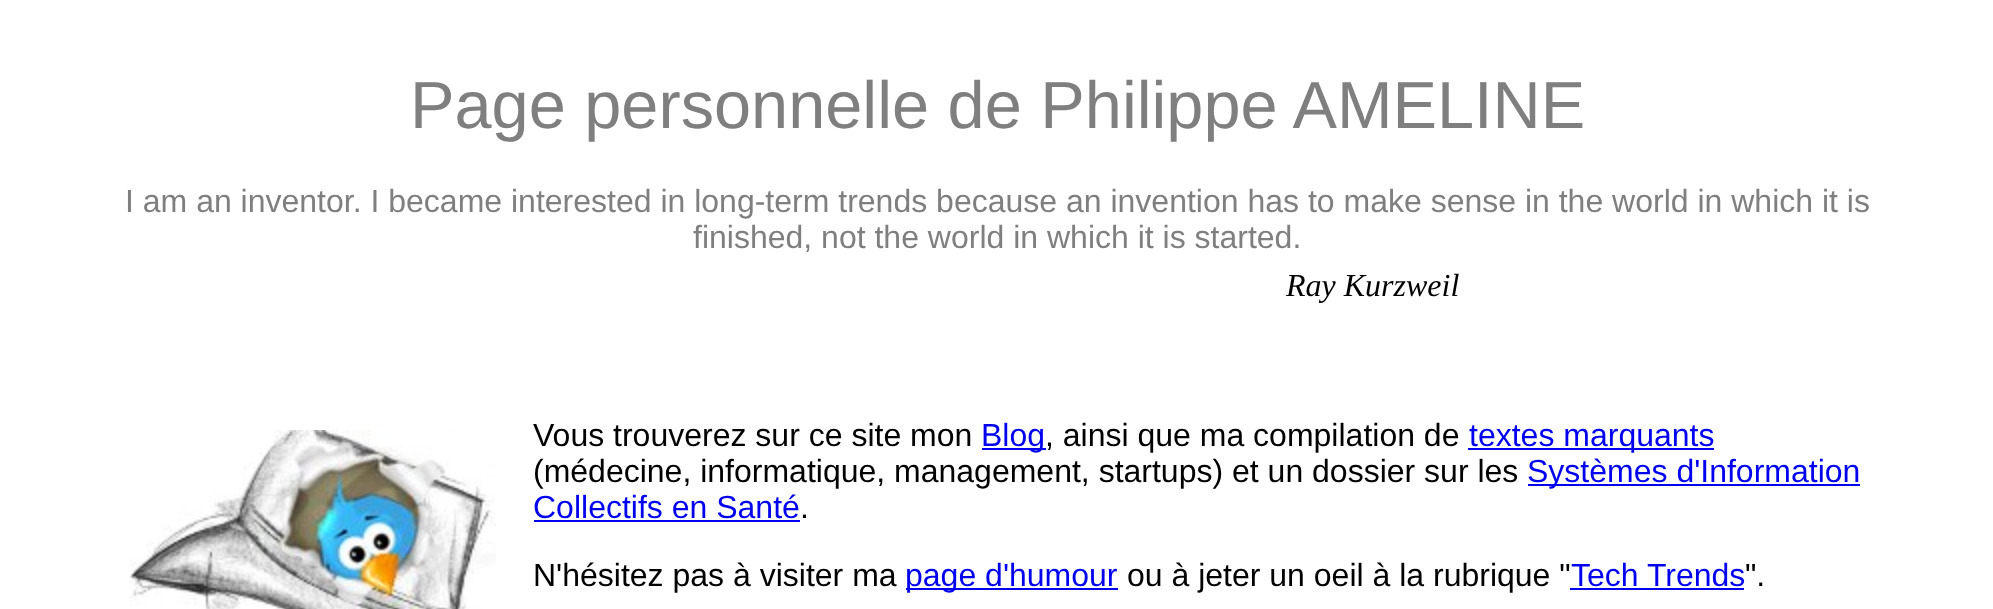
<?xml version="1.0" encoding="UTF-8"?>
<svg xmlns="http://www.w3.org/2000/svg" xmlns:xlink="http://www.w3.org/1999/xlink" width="1993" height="609">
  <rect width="100%" height="100%" fill="#ffffff" />
  <image x="129" y="430" width="367" height="179" xlink:href="image1.png" />
  <rect x="982" y="448" width="64" height="2" fill="#0000ee" />
  <rect x="1468" y="448" width="246" height="2" fill="#0000ee" />
  <rect x="1528" y="484" width="332" height="2" fill="#0000ee" />
  <rect x="534" y="520" width="266" height="2" fill="#0000ee" />
  <rect x="906" y="588" width="212" height="2" fill="#0000ee" />
  <rect x="1570" y="588" width="174" height="2" fill="#0000ee" />
  <text x="410" y="128" style="font-family: Liberation Sans; font-size: 66.7px; fill: #7f7f7f">Page personnelle de Philippe AMELINE</text>
  <text x="125" y="212" style="font-family: Liberation Sans; font-size: 32px; fill: #7f7f7f">I am an inventor. I became interested in long-term trends because an invention has to make sense in the world in which it is</text>
  <text x="693" y="248" style="font-family: Liberation Sans; font-size: 32px; fill: #7f7f7f">finished, not the world in which it is started.</text>
  <text x="1286" y="296" style="font-family: Liberation Serif; font-size: 32px; font-style: italic; fill: #000000">Ray Kurzweil</text>
  <text x="533" y="446" style="font-family: Liberation Sans; font-size: 32px; fill: #000000">Vous trouverez sur ce site mon</text>
  <text x="981" y="446" style="font-family: Liberation Sans; font-size: 32px; fill: #0000ee">Blog</text>
  <text x="1045" y="446" style="font-family: Liberation Sans; font-size: 32px; fill: #000000">, ainsi que ma compilation de</text>
  <text x="1469" y="446" style="font-family: Liberation Sans; font-size: 32px; fill: #0000ee">textes marquants</text>
  <text x="533" y="482" style="font-family: Liberation Sans; font-size: 32px; fill: #000000">(médecine, informatique, management, startups) et un dossier sur les</text>
  <text x="1527" y="482" style="font-family: Liberation Sans; font-size: 32px; fill: #0000ee">Systèmes d'Information</text>
  <text x="533" y="518" style="font-family: Liberation Sans; font-size: 32px; fill: #0000ee">Collectifs en Santé</text>
  <text x="800" y="518" style="font-family: Liberation Sans; font-size: 32px; fill: #000000">.</text>
  <text x="533" y="586" style="font-family: Liberation Sans; font-size: 32px; fill: #000000">N'hésitez pas à visiter ma</text>
  <text x="905" y="586" style="font-family: Liberation Sans; font-size: 32px; fill: #0000ee">page d'humour</text>
  <text x="1127" y="586" style="font-family: Liberation Sans; font-size: 32px; fill: #000000">ou à jeter un oeil à la rubrique "</text>
  <text x="1571" y="586" style="font-family: Liberation Sans; font-size: 32px; fill: #0000ee">Tech Trends</text>
  <text x="1745" y="586" style="font-family: Liberation Sans; font-size: 32px; fill: #000000">".</text>
</svg>
